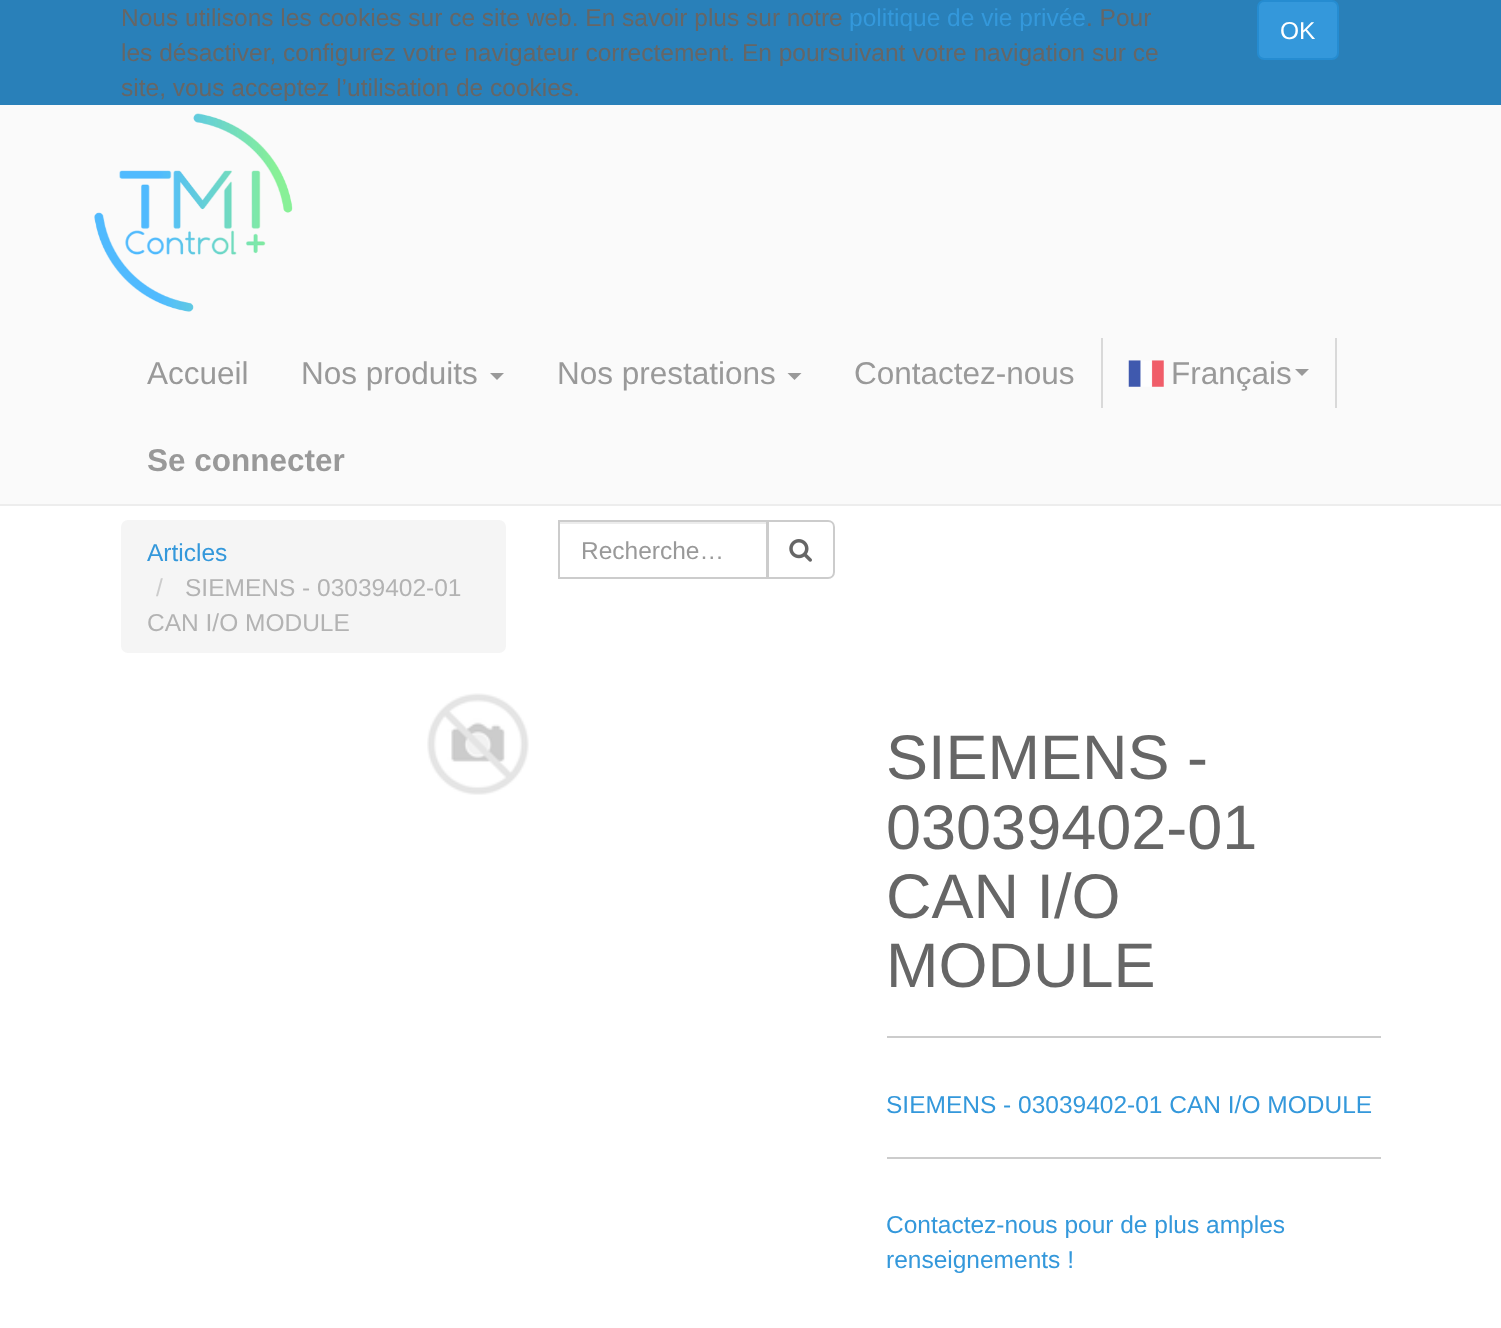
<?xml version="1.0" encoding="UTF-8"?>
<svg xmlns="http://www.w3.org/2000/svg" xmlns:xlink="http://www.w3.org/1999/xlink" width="1501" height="1328">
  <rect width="100%" height="100%" fill="#ffffff" />
  <rect width="1501" height="105" fill="#2980b9" />
  <rect x="1258" y="1" width="80" height="58" rx="6" fill="#3498db" stroke="#258cd1" stroke-width="2" />
  <rect y="105" width="1501" height="399" fill="#fafafa" />
  <rect y="504" width="1501" height="2" fill="#ededed" />
  <image x="94" y="113" width="199" height="199" xlink:href="image1.png" />
  <path d="M 490 373 h 14 l -7 7 z" fill="#999999" />
  <path d="M 787.5 373 h 14 l -7 7 z" fill="#999999" />
  <rect x="1101" y="338" width="2" height="70" fill="#d9d9d9" />
  <image x="1128" y="360" width="36" height="27" xlink:href="image2.png" />
  <path d="M 1295 369 h 14 l -7 7 z" fill="#999999" />
  <rect x="1335" y="338" width="2" height="70" fill="#d9d9d9" />
  <rect x="121" y="520" width="385" height="133" rx="7" fill="#f5f5f5" />
  <rect x="560" y="522" width="207" height="2" fill="#ececec" />
  <rect x="559" y="521" width="208" height="57" fill="none" stroke="#cccccc" stroke-width="2" />
  <path d="M 768 521 h 60 c 3.5 0 6 2.5 6 6 v 45 c 0 3.5 -2.5 6 -6 6 h -60 z" fill="#ffffff" stroke="#cccccc" stroke-width="2" />
  <image x="789" y="539" width="23" height="23" xlink:href="image3.png" />
  <image x="427" y="693" width="102" height="102" xlink:href="image4.png" />
  <rect x="887" y="1036" width="494" height="2" fill="#cccccc" />
  <rect x="887" y="1157" width="494" height="2" fill="#cccccc" />
  <text x="121" y="26" style="font-family: Liberation Sans; font-size: 24.5px; fill: #666666">Nous utilisons les cookies sur ce site web. En savoir plus sur notre</text>
  <text x="849" y="26" style="font-family: Liberation Sans; font-size: 24.5px; fill: #3498db">politique de vie privée</text>
  <text x="1086" y="26" style="font-family: Liberation Sans; font-size: 24.5px; fill: #666666">. Pour</text>
  <text x="121" y="61" style="font-family: Liberation Sans; font-size: 24.5px; fill: #666666">les désactiver, configurez votre navigateur correctement. En poursuivant votre navigation sur ce</text>
  <text x="121" y="96" style="font-family: Liberation Sans; font-size: 24.5px; fill: #666666">site, vous acceptez l’utilisation de cookies.</text>
  <text x="1280" y="39" style="font-family: Liberation Sans; font-size: 24.5px; fill: #ffffff">OK</text>
  <text x="147" y="384" style="font-family: Liberation Sans; font-size: 31.5px; fill: #999999">Accueil</text>
  <text x="301" y="384" style="font-family: Liberation Sans; font-size: 31.5px; fill: #999999">Nos produits</text>
  <text x="557" y="384" style="font-family: Liberation Sans; font-size: 31.5px; fill: #999999">Nos prestations</text>
  <text x="854" y="384" style="font-family: Liberation Sans; font-size: 31.5px; fill: #999999">Contactez-nous</text>
  <text x="1171" y="384" style="font-family: Liberation Sans; font-size: 31.5px; fill: #999999">Français</text>
  <text x="147" y="471" style="font-family: Liberation Sans; font-size: 31.5px; font-weight: bold; fill: #999999">Se connecter</text>
  <text x="147" y="561" style="font-family: Liberation Sans; font-size: 24.5px; fill: #3498db">Articles</text>
  <text x="156" y="596" style="font-family: Liberation Sans; font-size: 24.5px; fill: #cccccc">/</text>
  <text x="185" y="596" style="font-family: Liberation Sans; font-size: 24.5px; fill: #b3b3b3">SIEMENS - 03039402-01</text>
  <text x="147" y="631" style="font-family: Liberation Sans; font-size: 24.5px; fill: #b3b3b3">CAN I/O MODULE</text>
  <text x="581" y="559" style="font-family: Liberation Sans; font-size: 24.5px; fill: #999999">Recherche…</text>
  <text x="886" y="779" style="font-family: Liberation Sans; font-size: 63px; fill: #666666">SIEMENS -</text>
  <text x="886" y="849" style="font-family: Liberation Sans; font-size: 63px; fill: #666666">03039402-01</text>
  <text x="886" y="918" style="font-family: Liberation Sans; font-size: 63px; fill: #666666">CAN I/O</text>
  <text x="886" y="987" style="font-family: Liberation Sans; font-size: 63px; fill: #666666">MODULE</text>
  <text x="886" y="1113" style="font-family: Liberation Sans; font-size: 24.5px; fill: #3498db">SIEMENS - 03039402-01 CAN I/O MODULE</text>
  <text x="886" y="1233" style="font-family: Liberation Sans; font-size: 24.5px; fill: #3498db">Contactez-nous pour de plus amples</text>
  <text x="886" y="1268" style="font-family: Liberation Sans; font-size: 24.5px; fill: #3498db">renseignements !</text>
</svg>
